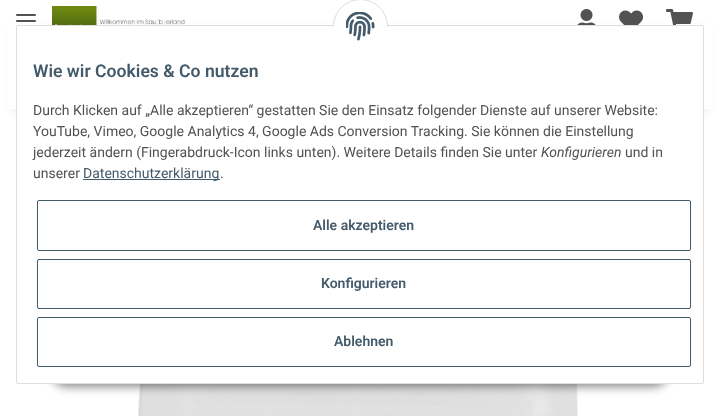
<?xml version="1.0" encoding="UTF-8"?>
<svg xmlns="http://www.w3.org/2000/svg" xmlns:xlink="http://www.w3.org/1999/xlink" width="720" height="416">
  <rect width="100%" height="100%" fill="#ffffff" />
  <rect x="12" y="28" width="696" height="85" fill="#000000" fill-opacity="0.06" filter="blur(4.5px)" />
  <rect x="8" y="24" width="704" height="85" fill="#ffffff" />
  <rect x="16" y="20" width="20" height="2" rx="1" fill="#525252" />
  <rect x="16" y="14" width="20" height="2" rx="1" fill="#525252" />
  <image x="52" y="6" width="133" height="19" xlink:href="image1.png" />
  <image x="577" y="9" width="19" height="16" xlink:href="image2.png" />
  <image x="619" y="10" width="24" height="15" xlink:href="image3.png" />
  <image x="666" y="9" width="27" height="16" xlink:href="image4.png" />
  <image x="138" y="384" width="440" height="32" xlink:href="image6.png" />
  <rect x="51" y="355" width="618" height="32" rx="16" fill="#000000" fill-opacity="0.45" filter="blur(5px)" />
  <rect x="16.5" y="25.5" width="687" height="358" rx="1.5" fill="#ffffff" stroke="#dddddd" />
  <circle cx="360.5" cy="26.5" r="27" fill="#ffffff" stroke="#dddddd" />
  <rect x="333" y="27" width="55" height="27" fill="#ffffff" />
  <image x="346" y="12" width="29" height="29" xlink:href="image5.png" />
  <rect x="83" y="179" width="137" height="1" fill="#435a6b" />
  <rect x="37.5" y="200.5" width="653" height="50" rx="1.5" fill="none" stroke="#435a6b" />
  <rect x="37.5" y="259.5" width="653" height="49" rx="1.5" fill="none" stroke="#435a6b" />
  <rect x="37.5" y="317.5" width="653" height="49" rx="1.5" fill="none" stroke="#435a6b" />
  <text x="33" y="77" style="font-family: Roboto; font-size: 17.6px; font-weight: 600; fill: #435a6b">Wie wir Cookies &amp; Co nutzen</text>
  <text x="33" y="115" style="font-family: Roboto; font-size: 14px; fill: #525252">Durch Klicken auf „Alle akzeptieren“ gestatten Sie den Einsatz folgender Dienste auf unserer Website:</text>
  <text x="33" y="136" style="font-family: Roboto; font-size: 14px; fill: #525252">YouTube, Vimeo, Google Analytics 4, Google Ads Conversion Tracking. Sie können die Einstellung</text>
  <text x="33" y="157" style="font-family: Roboto; font-size: 14px; fill: #525252">jederzeit ändern (Fingerabdruck-Icon links unten). Weitere Details finden Sie unter</text>
  <text x="541" y="157" style="font-family: Roboto; font-size: 14px; font-style: italic; fill: #525252">Konfigurieren</text>
  <text x="625" y="157" style="font-family: Roboto; font-size: 14px; fill: #525252">und in</text>
  <text x="33" y="178" style="font-family: Roboto; font-size: 14px; fill: #525252">unserer</text>
  <text x="83" y="178" style="font-family: Roboto; font-size: 14px; fill: #435a6b">Datenschutzerklärung</text>
  <text x="220" y="178" style="font-family: Roboto; font-size: 14px; fill: #525252">.</text>
  <text x="313" y="230" style="font-family: Roboto; font-size: 14px; font-weight: 600; fill: #435a6b">Alle akzeptieren</text>
  <text x="321" y="288" style="font-family: Roboto; font-size: 14px; font-weight: 600; fill: #435a6b">Konfigurieren</text>
  <text x="334" y="346" style="font-family: Roboto; font-size: 14px; font-weight: 600; fill: #435a6b">Ablehnen</text>
</svg>
